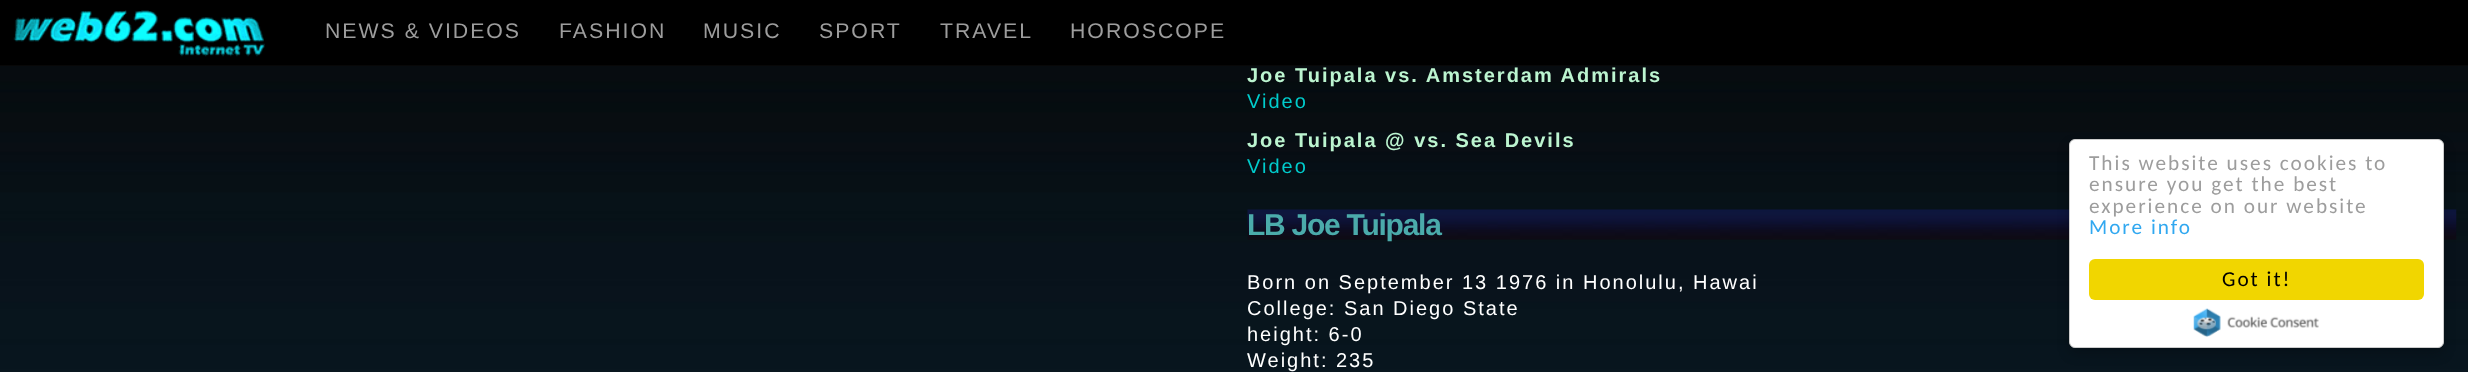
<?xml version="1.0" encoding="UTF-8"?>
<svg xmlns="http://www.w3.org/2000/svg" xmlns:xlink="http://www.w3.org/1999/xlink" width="2468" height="372">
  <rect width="100%" height="100%" fill="#ffffff" />
  <image x="0" y="66" width="2468" height="306" xlink:href="image1.png" />
  <rect width="2468" height="65" fill="#000000" />
  <rect y="65" width="2468" height="1" fill="#080808" />
  <image x="13" y="10" width="252" height="47" xlink:href="image2.png" />
  <image x="1247" y="209" width="1210" height="31" xlink:href="image3.png" />
  <rect x="2069" y="145" width="375" height="209" rx="6" fill="#000000" fill-opacity="0.2" filter="blur(6px)" />
  <rect x="2069.5" y="139.5" width="374" height="208" rx="5.5" fill="#ffffff" stroke="#cccccc" />
  <rect x="2089" y="259" width="335" height="41" rx="6" fill="#f1d600" />
  <image x="2193" y="308" width="126" height="29" xlink:href="image4.png" />
  <text x="325" y="38" style="font-family: Liberation Sans; font-size: 21.25px; letter-spacing: 2px; fill: #9d9d9d">NEWS &amp; VIDEOS</text>
  <text x="559" y="38" style="font-family: Liberation Sans; font-size: 21.25px; letter-spacing: 2px; fill: #9d9d9d">FASHION</text>
  <text x="703" y="38" style="font-family: Liberation Sans; font-size: 21.25px; letter-spacing: 2px; fill: #9d9d9d">MUSIC</text>
  <text x="819" y="38" style="font-family: Liberation Sans; font-size: 21.25px; letter-spacing: 2px; fill: #9d9d9d">SPORT</text>
  <text x="940" y="38" style="font-family: Liberation Sans; font-size: 21.25px; letter-spacing: 2px; fill: #9d9d9d">TRAVEL</text>
  <text x="1070" y="38" style="font-family: Liberation Sans; font-size: 21.25px; letter-spacing: 2px; fill: #9d9d9d">HOROSCOPE</text>
  <text x="1247" y="82" style="font-family: Liberation Sans; font-size: 20px; font-weight: bold; letter-spacing: 2px; fill: #bcf5d0">Joe Tuipala vs. Amsterdam Admirals</text>
  <text x="1247" y="108" style="font-family: Liberation Sans; font-size: 20px; letter-spacing: 2px; fill: #00cccc">Video</text>
  <text x="1247" y="147" style="font-family: Liberation Sans; font-size: 20px; font-weight: bold; letter-spacing: 2px; fill: #bcf5d0">Joe Tuipala @ vs. Sea Devils</text>
  <text x="1247" y="173" style="font-family: Liberation Sans; font-size: 20px; letter-spacing: 2px; fill: #00cccc">Video</text>
  <text x="1247" y="235" style="font-family: Liberation Sans; font-size: 30px; font-weight: bold; letter-spacing: -1.25px; fill: #4babab">LB Joe Tuipala</text>
  <text x="1247" y="289" style="font-family: Liberation Sans; font-size: 20px; letter-spacing: 2px; fill: #ffffff">Born on September 13 1976 in Honolulu, Hawai</text>
  <text x="1247" y="315" style="font-family: Liberation Sans; font-size: 20px; letter-spacing: 2px; fill: #ffffff">College: San Diego State</text>
  <text x="1247" y="341" style="font-family: Liberation Sans; font-size: 20px; letter-spacing: 2px; fill: #ffffff">height: 6-0</text>
  <text x="1247" y="367" style="font-family: Liberation Sans; font-size: 20px; letter-spacing: 2px; fill: #ffffff">Weight: 235</text>
  <text x="2089" y="170" style="font-family: Carlito; font-size: 21.25px; letter-spacing: 2px; fill: #9d9d9d">This website uses cookies to</text>
  <text x="2089" y="191" style="font-family: Carlito; font-size: 21.25px; letter-spacing: 2px; fill: #9d9d9d">ensure you get the best</text>
  <text x="2089" y="213" style="font-family: Carlito; font-size: 21.25px; letter-spacing: 2px; fill: #9d9d9d">experience on our website</text>
  <text x="2089" y="234" style="font-family: Carlito; font-size: 21.25px; letter-spacing: 2px; fill: #31a8f0">More info</text>
  <text x="2222" y="286" style="font-family: Carlito; font-size: 21.25px; letter-spacing: 2px; fill: #000000">Got it!</text>
</svg>
